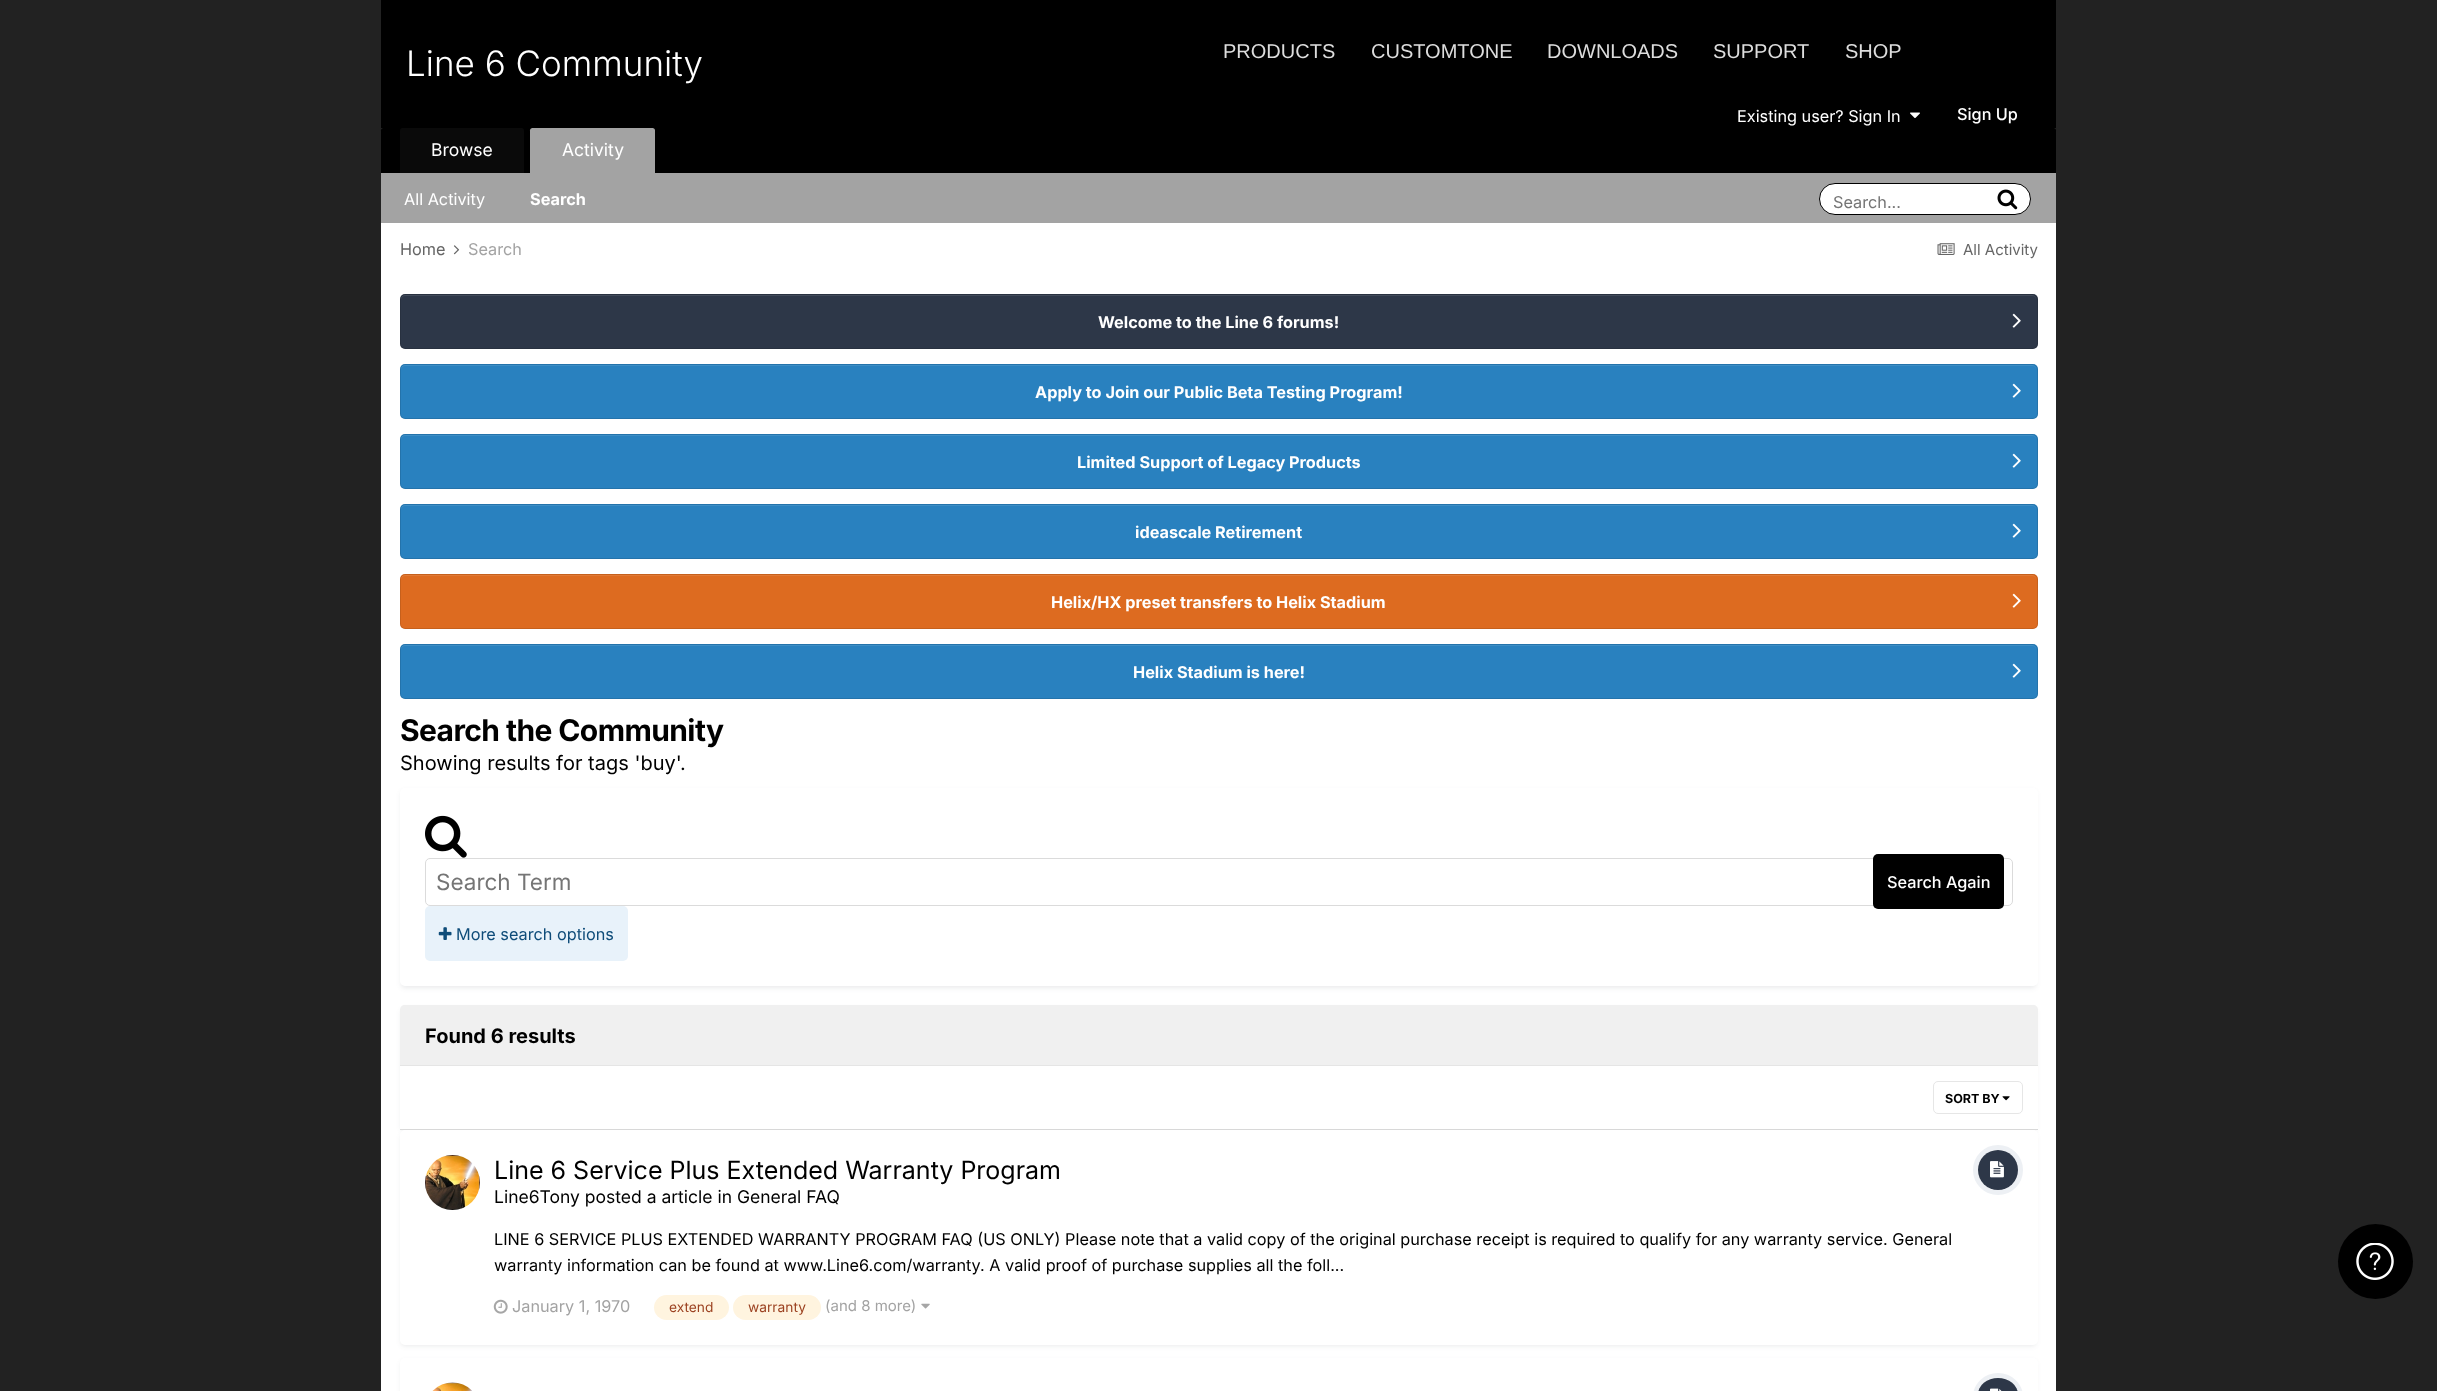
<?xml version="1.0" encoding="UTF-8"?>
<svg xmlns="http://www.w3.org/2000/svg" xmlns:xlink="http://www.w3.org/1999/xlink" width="2437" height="1391">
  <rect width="100%" height="100%" fill="#222222" />
  <rect x="381" width="1675" height="128" fill="#000000" />
  <image x="1910" y="112" width="10" height="6" xlink:href="image1.png" />
  <path d="M 383.5 128 h 1670 c 1.5 0 2.5 1 2.5 2.5 v 92.5 h -1675 v -92.5 c 0 -1.5 1 -2.5 2.5 -2.5 z" fill="#000000" />
  <path d="M 532.5 128 h 120 c 1.5 0 2.5 1 2.5 2.5 v 42.5 h -125 v -42.5 c 0 -1.5 1 -2.5 2.5 -2.5 z" fill="#a3a3a3" />
  <rect x="381" y="173" width="1675" height="50" fill="#a3a3a3" />
  <path d="M 402.5 128 h 119 c 1.5 0 2.5 1 2.5 2.5 v 42.5 h -124 v -42.5 c 0 -1.5 1 -2.5 2.5 -2.5 z" fill="#0a0a0a" />
  <rect x="1819.5" y="183.5" width="211" height="31" rx="15.5" fill="#ffffff" stroke="#000000" />
  <image x="1997" y="189" width="21" height="21" xlink:href="image2.png" />
  <rect x="381" y="223" width="1675" height="1168" fill="#ffffff" />
  <image x="453" y="245" width="7" height="10" xlink:href="image3.png" />
  <image x="1937" y="243" width="18" height="12" xlink:href="image4.png" />
  <rect x="400" y="294" width="1638" height="55" rx="5" fill="#2d3748" />
  <path d="M 405 296 h 1627 c 3 0 4 2 4 4 v -1 c 0 -2 -2 -4 -4 -4 h -1627 c -2 0 -4 2 -4 4 v 1 c 0 -2 2 -4 4 -4 z" fill="#424b5a" />
  <rect x="400.5" y="294.5" width="1637" height="54" rx="4.5" fill="none" stroke="#000000" stroke-opacity="0.1" />
  <image x="2012" y="313" width="9" height="15" xlink:href="image5.png" />
  <rect x="400" y="364" width="1638" height="55" rx="5" fill="#2981bf" />
  <path d="M 405 366 h 1627 c 3 0 4 2 4 4 v -1 c 0 -2 -2 -4 -4 -4 h -1627 c -2 0 -4 2 -4 4 v 1 c 0 -2 2 -4 4 -4 z" fill="#3e8ec5" />
  <rect x="400.5" y="364.5" width="1637" height="54" rx="4.5" fill="none" stroke="#000000" stroke-opacity="0.1" />
  <image x="2012" y="383" width="9" height="15" xlink:href="image6.png" />
  <rect x="400" y="434" width="1638" height="55" rx="5" fill="#2981bf" />
  <path d="M 405 436 h 1627 c 3 0 4 2 4 4 v -1 c 0 -2 -2 -4 -4 -4 h -1627 c -2 0 -4 2 -4 4 v 1 c 0 -2 2 -4 4 -4 z" fill="#3e8ec5" />
  <rect x="400.5" y="434.5" width="1637" height="54" rx="4.5" fill="none" stroke="#000000" stroke-opacity="0.1" />
  <image x="2012" y="453" width="9" height="15" xlink:href="image6.png" />
  <rect x="400" y="504" width="1638" height="55" rx="5" fill="#2981bf" />
  <path d="M 405 506 h 1627 c 3 0 4 2 4 4 v -1 c 0 -2 -2 -4 -4 -4 h -1627 c -2 0 -4 2 -4 4 v 1 c 0 -2 2 -4 4 -4 z" fill="#3e8ec5" />
  <rect x="400.5" y="504.5" width="1637" height="54" rx="4.5" fill="none" stroke="#000000" stroke-opacity="0.1" />
  <image x="2012" y="523" width="9" height="15" xlink:href="image6.png" />
  <rect x="400" y="574" width="1638" height="55" rx="5" fill="#dd6b20" />
  <path d="M 405 576 h 1627 c 3 0 4 2 4 4 v -1 c 0 -2 -2 -4 -4 -4 h -1627 c -2 0 -4 2 -4 4 v 1 c 0 -2 2 -4 4 -4 z" fill="#e07a36" />
  <rect x="400.5" y="574.5" width="1637" height="54" rx="4.5" fill="none" stroke="#000000" stroke-opacity="0.1" />
  <image x="2012" y="593" width="9" height="15" xlink:href="image7.png" />
  <rect x="400" y="644" width="1638" height="55" rx="5" fill="#2981bf" />
  <path d="M 405 646 h 1627 c 3 0 4 2 4 4 v -1 c 0 -2 -2 -4 -4 -4 h -1627 c -2 0 -4 2 -4 4 v 1 c 0 -2 2 -4 4 -4 z" fill="#3e8ec5" />
  <rect x="400.5" y="644.5" width="1637" height="54" rx="4.5" fill="none" stroke="#000000" stroke-opacity="0.1" />
  <image x="2012" y="663" width="9" height="15" xlink:href="image6.png" />
  <rect x="401" y="791" width="1635" height="197" rx="4" fill="#2d3748" fill-opacity="0.1" filter="blur(2.5px)" />
  <rect x="400" y="788" width="1638" height="198" rx="5" fill="#ffffff" />
  <image x="425" y="815" width="42" height="43" xlink:href="image8.png" />
  <rect x="425.5" y="858.5" width="1587" height="47" rx="4.5" fill="none" stroke="#dbdbdb" />
  <rect x="1873" y="854" width="131" height="55" rx="5" fill="#000000" />
  <rect x="425" y="906" width="203" height="55" rx="5" fill="#e8f2fa" />
  <image x="438" y="927" width="14" height="13" xlink:href="image9.png" />
  <rect x="401" y="1009" width="1635" height="122" rx="4" fill="#2d3748" fill-opacity="0.1" filter="blur(2.5px)" />
  <path d="M 405 1005 h 1628 c 3 0 5 2 5 5 v 56 h -1638 v -56 c 0 -3 2 -5 5 -5 z" fill="#f0f0f0" />
  <rect x="400" y="1065" width="1638" height="1" fill="#e5e5e5" />
  <rect x="400" y="1066" width="1638" height="63" fill="#ffffff" />
  <rect x="400" y="1129" width="1638" height="1" fill="#d9d9d9" />
  <image x="2002" y="1096" width="8" height="5" xlink:href="image10.png" />
  <rect x="1933.5" y="1081.5" width="89" height="32" rx="4.5" fill="none" stroke="#e6e6e6" />
  <rect x="401" y="1134" width="1635" height="212" rx="4" fill="#2d3748" fill-opacity="0.1" filter="blur(2.5px)" />
  <rect x="400" y="1130" width="1638" height="215" rx="5" fill="#ffffff" />
  <image x="425" y="1155" width="55" height="55" xlink:href="image11.png" />
  <circle cx="1998" cy="1170" r="22.5" fill="none" stroke="#edf0f4" stroke-width="5" />
  <circle cx="1998" cy="1170" r="20" fill="#2d3748" />
  <image x="1990" y="1161" width="14" height="17" xlink:href="image12.png" />
  <image x="493" y="1299" width="15" height="15" xlink:href="image13.png" />
  <rect x="654" y="1295" width="75" height="25" rx="12.5" fill="#fff4df" />
  <rect x="733" y="1295" width="88" height="25" rx="12.5" fill="#fff4df" />
  <image x="921" y="1303" width="9" height="6" xlink:href="image14.png" />
  <rect x="401" y="1361" width="1635" height="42" rx="4" fill="#2d3748" fill-opacity="0.1" filter="blur(2.5px)" />
  <rect x="400" y="1358" width="1638" height="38" rx="5" fill="#ffffff" />
  <image x="432" y="1382" width="40" height="9" xlink:href="image15.png" />
  <rect x="1975.5" y="1375.5" width="45" height="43" rx="22.5" fill="none" stroke="#edf0f4" stroke-width="5" />
  <rect x="1978" y="1378" width="40" height="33" rx="20" fill="#2d3748" />
  <image x="1990" y="1388" width="12" height="3" xlink:href="image16.png" />
  <circle cx="2375.5" cy="1261.5" r="37.5" fill="#000000" />
  <image x="2356" y="1243" width="38" height="37" xlink:href="image17.png" />
  <text x="406" y="76" style="font-family: Inter; font-size: 35px; font-weight: 300; fill: #ffffff">Line 6 Community</text>
  <text x="1223" y="58" style="font-family: Liberation Sans; font-size: 20px; fill: #dddddd">PRODUCTS</text>
  <text x="1371" y="58" style="font-family: Liberation Sans; font-size: 20px; fill: #dddddd">CUSTOMTONE</text>
  <text x="1547" y="58" style="font-family: Liberation Sans; font-size: 20px; fill: #dddddd">DOWNLOADS</text>
  <text x="1713" y="58" style="font-family: Liberation Sans; font-size: 20px; fill: #dddddd">SUPPORT</text>
  <text x="1845" y="58" style="font-family: Liberation Sans; font-size: 20px; fill: #dddddd">SHOP</text>
  <text x="1737" y="122" style="font-family: Inter; font-size: 16.25px; fill: #ffffff">Existing user? Sign In</text>
  <text x="1957" y="120" style="font-family: Inter; font-size: 16.25px; font-weight: 500; fill: #ffffff">Sign Up</text>
  <text x="562" y="156" style="font-family: Inter; font-size: 17.5px; fill: #ffffff">Activity</text>
  <text x="404" y="205" style="font-family: Inter; font-size: 16.25px; fill: #ffffff">All Activity</text>
  <text x="530" y="205" style="font-family: Inter; font-size: 16.25px; font-weight: bold; fill: #ffffff">Search</text>
  <text x="431" y="156" style="font-family: Inter; font-size: 17.5px; fill: #ffffff">Browse</text>
  <text x="1833" y="208" style="font-family: Inter; font-size: 16.25px; fill: #757575">Search...</text>
  <text x="400" y="255" style="font-family: Inter; font-size: 16.25px; fill: #666666">Home</text>
  <text x="468" y="255" style="font-family: Inter; font-size: 16.25px; fill: #a3a3a3">Search</text>
  <text x="1963" y="255" style="font-family: Inter; font-size: 15px; fill: #666666">All Activity</text>
  <text x="1098" y="328" style="font-family: Inter; font-size: 16.25px; font-weight: bold; fill: #ffffff">Welcome to the Line 6 forums!</text>
  <text x="1035" y="398" style="font-family: Inter; font-size: 16.25px; font-weight: bold; fill: #ffffff">Apply to Join our Public Beta Testing Program!</text>
  <text x="1077" y="468" style="font-family: Inter; font-size: 16.25px; font-weight: bold; fill: #ffffff">Limited Support of Legacy Products</text>
  <text x="1135" y="538" style="font-family: Inter; font-size: 16.25px; font-weight: bold; fill: #ffffff">ideascale Retirement</text>
  <text x="1051" y="608" style="font-family: Inter; font-size: 16.25px; font-weight: bold; fill: #ffffff">Helix/HX preset transfers to Helix Stadium</text>
  <text x="1133" y="678" style="font-family: Inter; font-size: 16.25px; font-weight: bold; fill: #ffffff">Helix Stadium is here!</text>
  <text x="400" y="741" style="font-family: Inter; font-size: 30px; font-weight: bold; letter-spacing: -0.6px; fill: #000000">Search the Community</text>
  <text x="400" y="770" style="font-family: Inter; font-size: 20px; fill: #000000">Showing results for tags 'buy'.</text>
  <text x="436" y="890" style="font-family: Inter; font-size: 22.5px; fill: #757575">Search Term</text>
  <text x="1887" y="888" style="font-family: Inter; font-size: 16.25px; font-weight: 500; fill: #ffffff">Search Again</text>
  <text x="456" y="940" style="font-family: Inter; font-size: 16.25px; fill: #0e4c79">More search options</text>
  <text x="425" y="1043" style="font-family: Inter; font-size: 20px; font-weight: bold; fill: #000000">Found 6 results</text>
  <text x="1945" y="1103" style="font-family: Inter; font-size: 12.5px; font-weight: bold; fill: #000000">SORT BY</text>
  <text x="494" y="1179" style="font-family: Inter; font-size: 25px; fill: #000000">Line 6 Service Plus Extended Warranty Program</text>
  <text x="494" y="1203" style="font-family: Inter; font-size: 17.5px; fill: #000000">Line6Tony posted a article in General FAQ</text>
  <text x="494" y="1245" style="font-family: Inter; font-size: 16.25px; fill: #000000">LINE 6 SERVICE PLUS EXTENDED WARRANTY PROGRAM FAQ (US ONLY) Please note that a valid copy of the original purchase receipt is required to qualify for any warranty service. General</text>
  <text x="494" y="1271" style="font-family: Inter; font-size: 16.25px; fill: #000000">warranty information can be found at www.Line6.com/warranty. A valid proof of purchase supplies all the foll...</text>
  <text x="512" y="1312" style="font-family: Inter; font-size: 16.25px; fill: #a3a3a3">January 1, 1970</text>
  <text x="669" y="1312" style="font-family: Inter; font-size: 13.75px; fill: #9c4221">extend</text>
  <text x="748" y="1312" style="font-family: Inter; font-size: 13.75px; fill: #9c4221">warranty</text>
  <text x="825" y="1311" style="font-family: Inter; font-size: 15px; fill: #a3a3a3">(and 8 more)</text>
</svg>
